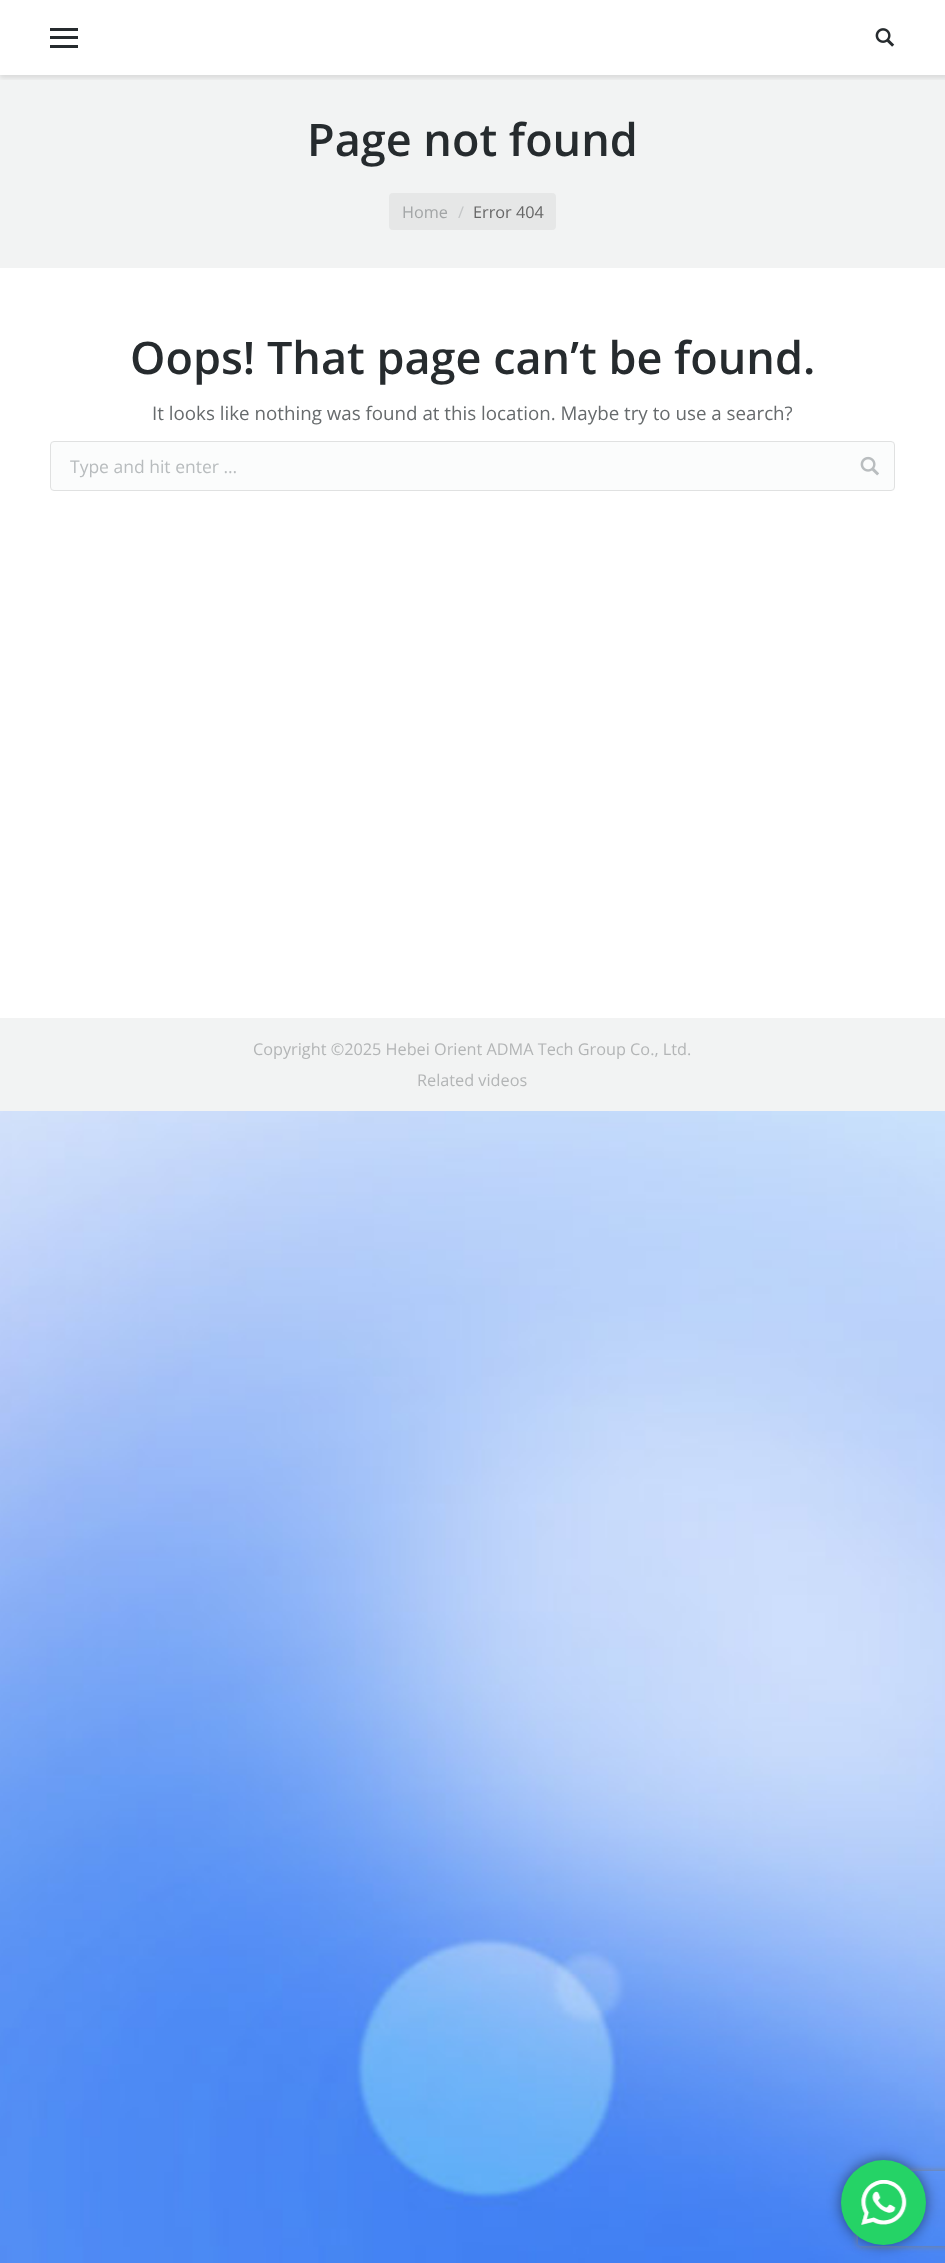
<?xml version="1.0" encoding="UTF-8"?>
<svg xmlns="http://www.w3.org/2000/svg" xmlns:xlink="http://www.w3.org/1999/xlink" width="945" height="2263">
  <defs>
    <clipPath id="clip1"><rect x="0" y="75" width="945" height="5" /></clipPath>
    <clipPath id="clip2"><path d="M 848 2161 h 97 v 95 h -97 z m 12.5 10 h 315 c 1.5 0 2.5 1 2.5 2.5 v 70 c 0 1.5 -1 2.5 -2.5 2.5 h -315 c -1.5 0 -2.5 -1 -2.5 -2.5 v -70 c 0 -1.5 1 -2.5 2.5 -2.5 z" clip-rule="evenodd" /></clipPath>
  </defs>
  <rect width="100%" height="100%" fill="#ffffff" />
  <image x="0" y="1111" width="945" height="1152" xlink:href="image1.png" />
  <rect y="75" width="945" height="193" fill="#f2f3f3" />
  <g clip-path="url(#clip1)">
    <rect width="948" height="78" fill="#000000" fill-opacity="0.1" filter="blur(2.5px)" />
  </g>
  <rect x="50" y="36" width="28" height="3" fill="#262b2e" />
  <rect x="50" y="28" width="28" height="3" fill="#262b2e" />
  <rect x="50" y="45" width="28" height="3" fill="#262b2e" />
  <image x="875" y="28" width="20" height="19" xlink:href="image2.png" />
  <rect x="389" y="193" width="167" height="37" rx="4" fill="#e6e7e7" />
  <rect x="50.5" y="441.5" width="844" height="49" rx="3.5" fill="#fbfcfc" stroke="#e0e1e1" />
  <image x="860" y="456" width="19" height="20" xlink:href="image3.png" />
  <rect y="1018" width="945" height="93" fill="#f2f3f3" />
  <rect x="841" y="2160" width="85" height="85" rx="42.5" fill="#000000" fill-opacity="0.5" filter="blur(7px)" />
  <g clip-path="url(#clip2)">
    <rect x="858" y="2171" width="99" height="75" rx="2.5" fill="#808080" filter="blur(3px)" />
  </g>
  <circle cx="883.5" cy="2202.5" r="42.5" fill="#25d366" />
  <image x="861" y="2180" width="46" height="45" xlink:href="image4.png" />
  <text x="307" y="156" style="font-family: Open Sans; font-size: 45px; font-weight: 600; fill: #262b2e">Page not found</text>
  <text x="402" y="218" style="font-family: Open Sans; font-size: 16.25px; fill: #a2a5a6">Home</text>
  <text x="458" y="218" style="font-family: Open Sans; font-size: 16.25px; fill: #c4c6c7">/</text>
  <text x="473" y="218" style="font-family: Open Sans; font-size: 16.25px; fill: #666666">Error 404</text>
  <text x="130" y="374" style="font-family: Open Sans; font-size: 45px; font-weight: 600; fill: #262b2e">Oops! That page can’t be found.</text>
  <text x="152" y="420" style="font-family: Open Sans; font-size: 18.75px; fill: #676b6d">It looks like nothing was found at this location. Maybe try to use a search?</text>
  <text x="70" y="473" style="font-family: Open Sans; font-size: 17.5px; fill: #b8bcbe">Type and hit enter …</text>
  <text x="253" y="1055" style="font-family: Open Sans; font-size: 16.25px; fill: #b3b5b6">Copyright ©2025 Hebei Orient ADMA Tech Group Co., Ltd.</text>
  <text x="417" y="1086" style="font-family: Open Sans; font-size: 16.25px; fill: #b3b5b6">Related videos</text>
</svg>
